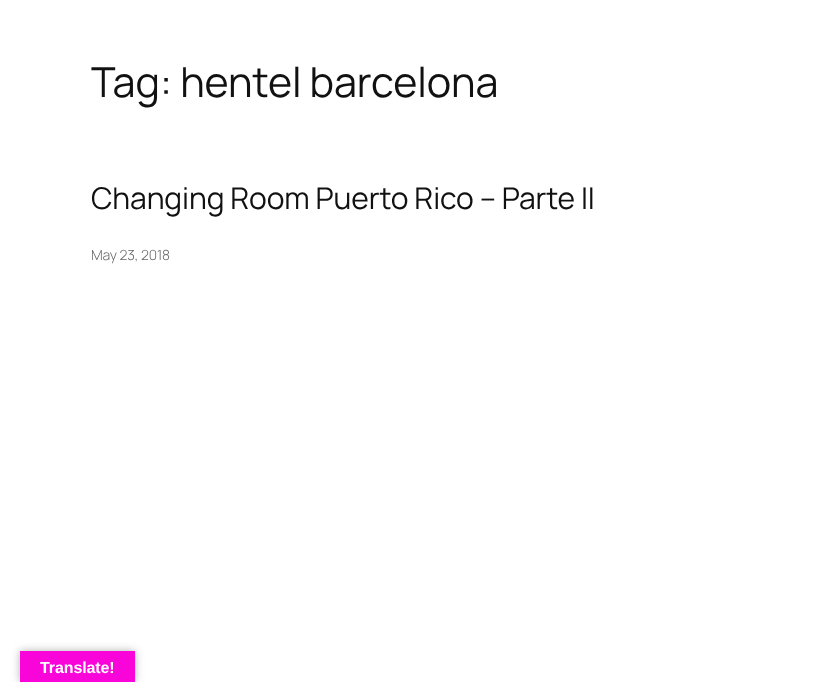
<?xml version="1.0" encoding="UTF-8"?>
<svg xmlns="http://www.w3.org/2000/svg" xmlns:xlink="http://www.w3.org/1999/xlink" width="826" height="682">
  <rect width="100%" height="100%" fill="#ffffff" />
  <rect x="20" y="651" width="115" height="31" fill="#000000" fill-opacity="0.3" filter="blur(4.5px)" />
  <rect x="20" y="651" width="115" height="31" fill="#f904d9" />
  <text x="91" y="97" style="font-family: Manrope; font-size: 41.25px; letter-spacing: -0.1px; fill: #111111">Tag: hentel barcelona</text>
  <text x="91" y="209" style="font-family: Manrope; font-size: 30px; letter-spacing: -0.1px; fill: #111111">Changing Room Puerto Rico – Parte II</text>
  <text x="91" y="260" style="font-family: Manrope; font-size: 14px; font-weight: 300; letter-spacing: -0.1px; fill: #686868">May 23, 2018</text>
  <text x="40" y="673" style="font-family: Liberation Sans; font-size: 16px; font-weight: bold; letter-spacing: -0.1px; fill: #ffffff">Translate!</text>
</svg>
